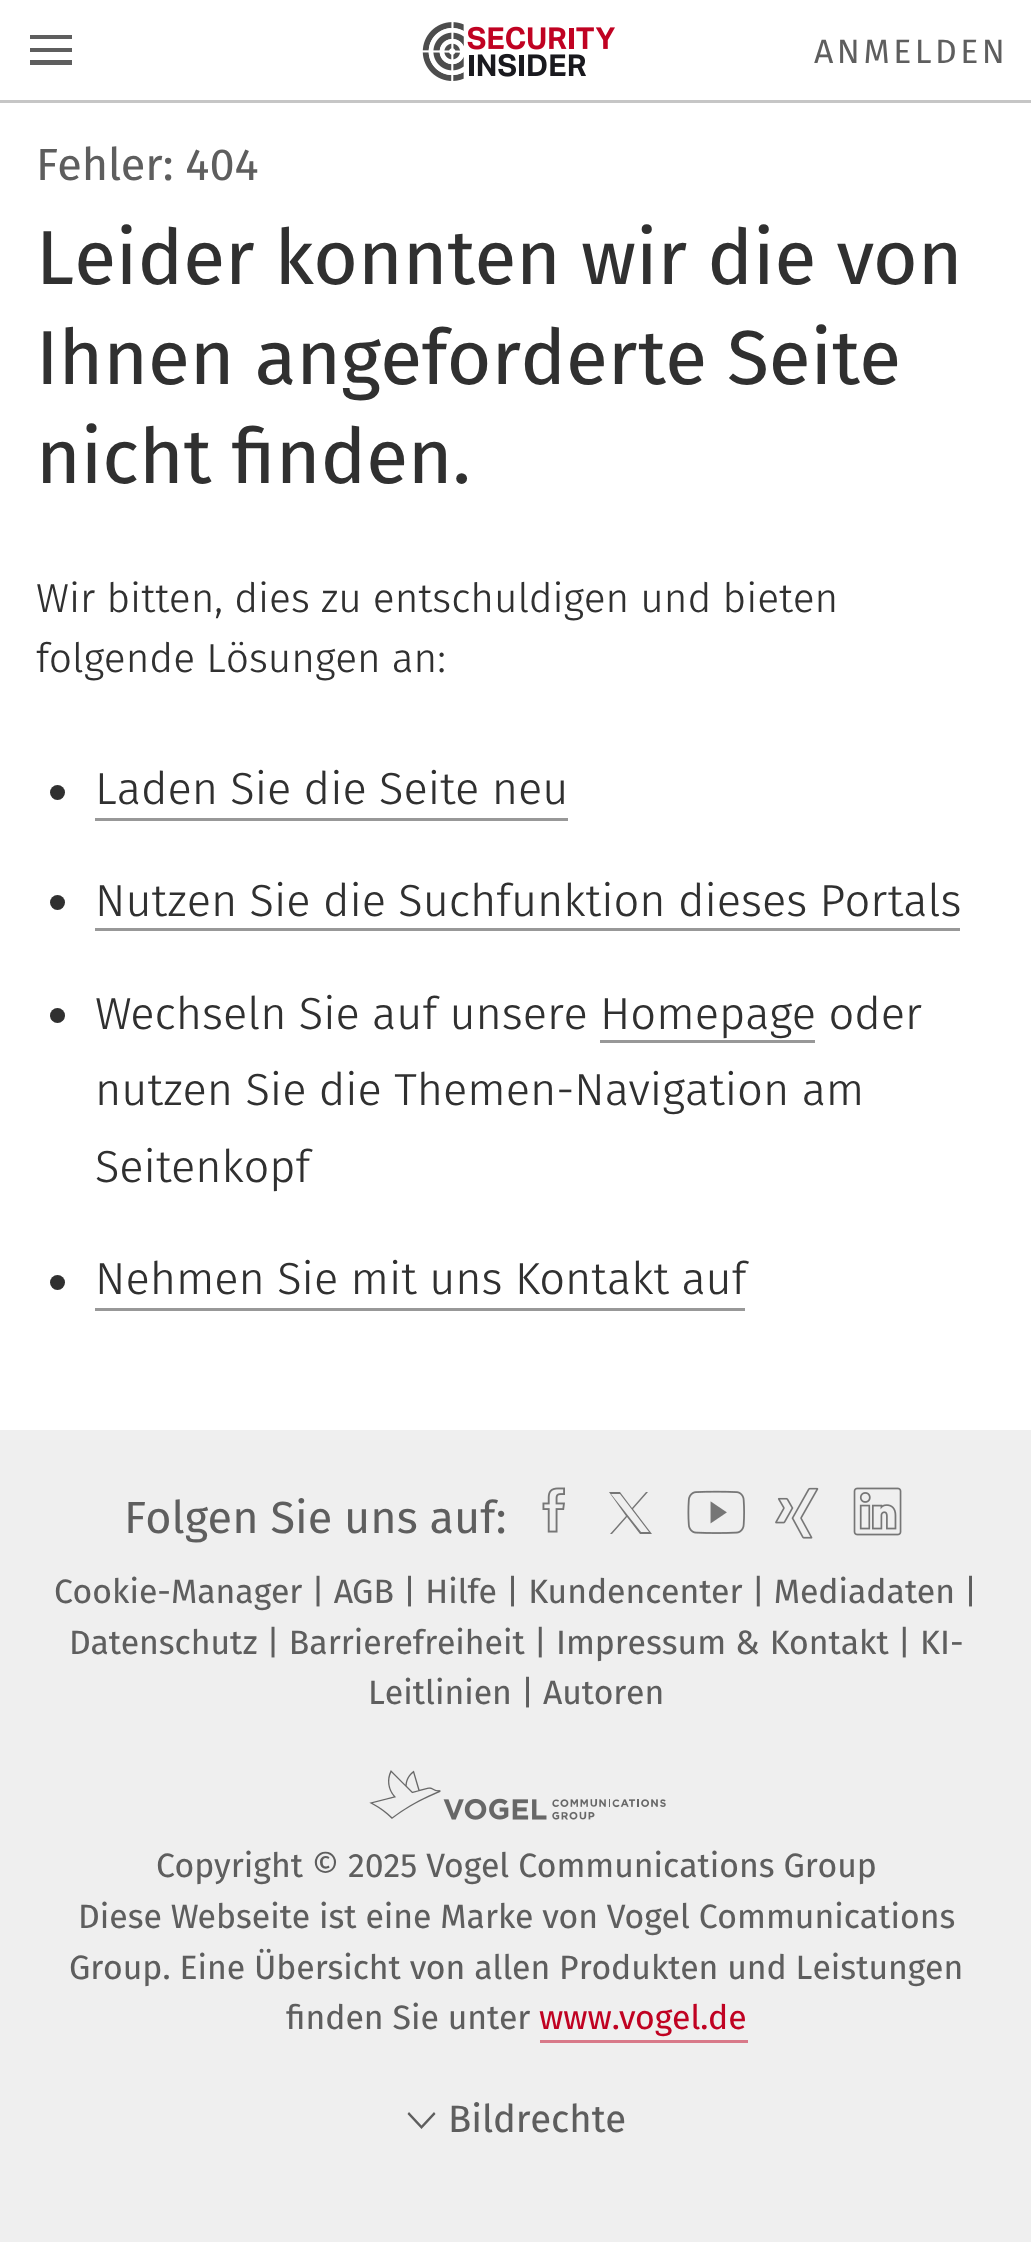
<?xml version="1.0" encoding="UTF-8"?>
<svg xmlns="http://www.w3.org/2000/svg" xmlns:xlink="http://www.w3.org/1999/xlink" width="1031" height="2242">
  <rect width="100%" height="100%" fill="#ffffff" />
  <rect y="100" width="1031" height="3" fill="#c6c6c6" />
  <path d="M 30 52 v -4 h 42 v 4 z m 0 -13 v -4 h 42 v 4 z m 0 26 v -5 h 42 v 5 z" fill="#5e5e5e" />
  <image x="422" y="22" width="193" height="59" xlink:href="image1.png" />
  <circle cx="57.5" cy="792.5" r="7.5" fill="#303030" />
  <rect x="95" y="818" width="473" height="3" fill="#989898" />
  <circle cx="57.5" cy="902.5" r="7.5" fill="#303030" />
  <rect x="95" y="928" width="865" height="3" fill="#989898" />
  <circle cx="57.5" cy="1015.5" r="7.5" fill="#303030" />
  <rect x="600" y="1040" width="215" height="3" fill="#989898" />
  <circle cx="57.5" cy="1282.5" r="7.5" fill="#303030" />
  <rect x="95" y="1308" width="650" height="3" fill="#989898" />
  <rect y="1430" width="1031" height="812" fill="#efefef" />
  <image x="542" y="1487" width="23" height="46" xlink:href="image2.png" />
  <path d="M 610 1534 h 2 l 15 -17 l 13 17 h 12 l -19 -25 l 15 -17 h -2 l -14 16 l -12 -16 h -11 l 17 24 z m 1 -40 h 9 l 29 38 h -8 z" fill="#767676" />
  <image x="687" y="1490" width="58" height="44" xlink:href="image3.png" />
  <image x="775" y="1487" width="44" height="52" xlink:href="image4.png" />
  <image x="853" y="1487" width="49" height="49" xlink:href="image5.png" />
  <image x="369" y="1770" width="297" height="50" xlink:href="image6.png" />
  <rect x="540" y="2040" width="208" height="3" fill="#d87989" />
  <path d="M 434 2112 l 1.5 2 l -14 15 l -14 -15 l 1.5 -2 l 12.5 13.5 z" fill="#5e5e5e" />
  <text x="814" y="63" style="font-family: 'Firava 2'; font-size: 33.75px; letter-spacing: 3.5px; fill: #5e5e5e">ANMELDEN</text>
  <text x="36" y="180" style="font-family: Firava; font-size: 45px; fill: #5e5e5e">Fehler: 404</text>
  <text x="36" y="284" style="font-family: Firava; font-size: 76.5px; fill: #303030">Leider konnten wir die von</text>
  <text x="36" y="384" style="font-family: Firava; font-size: 76.5px; fill: #303030">Ihnen angeforderte Seite</text>
  <text x="36" y="483" style="font-family: Firava; font-size: 76.5px; fill: #303030">nicht finden.</text>
  <text x="36" y="612" style="font-family: Firava; font-size: 40.5px; font-weight: 300; fill: #303030">Wir bitten, dies zu entschuldigen und bieten</text>
  <text x="36" y="672" style="font-family: Firava; font-size: 40.5px; font-weight: 300; fill: #303030">folgende Lösungen an:</text>
  <text x="95" y="804" style="font-family: Firava; font-size: 45px; font-weight: 300; fill: #303030">Laden Sie die Seite neu</text>
  <text x="95" y="916" style="font-family: Firava; font-size: 45px; font-weight: 300; fill: #303030">Nutzen Sie die Suchfunktion dieses Portals</text>
  <text x="95" y="1029" style="font-family: Firava; font-size: 45px; font-weight: 300; fill: #303030">Wechseln Sie auf unsere Homepage oder</text>
  <text x="95" y="1105" style="font-family: Firava; font-size: 45px; font-weight: 300; fill: #303030">nutzen Sie die Themen-Navigation am</text>
  <text x="95" y="1182" style="font-family: Firava; font-size: 45px; font-weight: 300; fill: #303030">Seitenkopf</text>
  <text x="95" y="1294" style="font-family: Firava; font-size: 45px; font-weight: 300; fill: #303030">Nehmen Sie mit uns Kontakt auf</text>
  <text x="124" y="1533" style="font-family: 'Firava 2'; font-size: 45px; fill: #5e5e5e">Folgen Sie uns auf:</text>
  <text x="54" y="1603" style="font-family: Firava; font-size: 33.75px; fill: #5e5e5e">Cookie-Manager | AGB | Hilfe | Kundencenter | Mediadaten |</text>
  <text x="69" y="1654" style="font-family: Firava; font-size: 33.75px; fill: #5e5e5e">Datenschutz | Barrierefreiheit | Impressum &amp; Kontakt | KI-</text>
  <text x="368" y="1704" style="font-family: Firava; font-size: 33.75px; fill: #5e5e5e">Leitlinien | Autoren</text>
  <text x="156" y="1877" style="font-family: Firava; font-size: 33.75px; fill: #5e5e5e">Copyright © 2025 Vogel Communications Group</text>
  <text x="78" y="1928" style="font-family: Firava; font-size: 33.75px; fill: #5e5e5e">Diese Webseite ist eine Marke von Vogel Communications</text>
  <text x="69" y="1979" style="font-family: Firava; font-size: 33.75px; fill: #5e5e5e">Group. Eine Übersicht von allen Produkten und Leistungen</text>
  <text x="286" y="2029" style="font-family: Firava; font-size: 33.75px; fill: #5e5e5e">finden Sie unter</text>
  <text x="539" y="2029" style="font-family: Firava; font-size: 33.75px; fill: #c00222">www.vogel.de</text>
  <text x="448" y="2132" style="font-family: Firava; font-size: 38.25px; fill: #5e5e5e">Bildrechte</text>
</svg>
